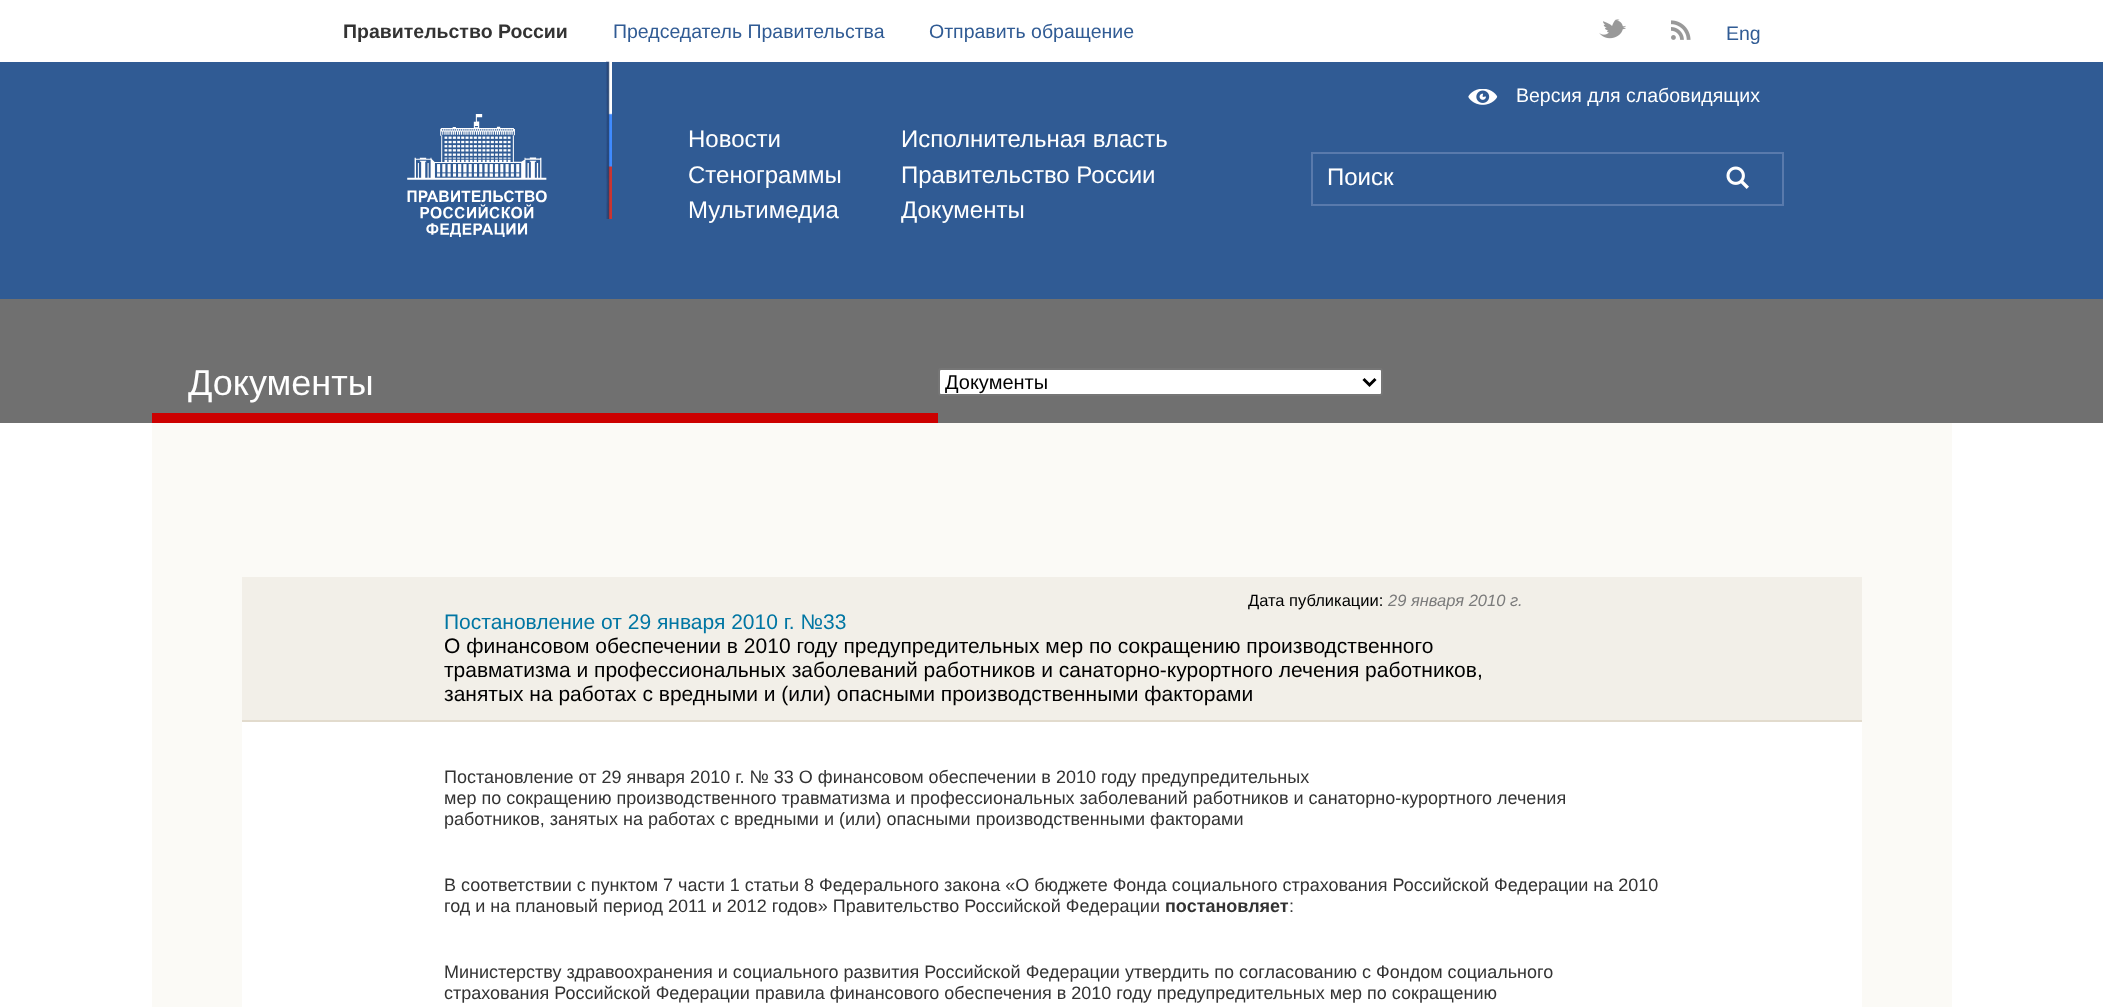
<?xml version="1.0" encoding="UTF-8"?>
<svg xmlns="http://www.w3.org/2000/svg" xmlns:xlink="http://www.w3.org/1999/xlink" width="2103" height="1007">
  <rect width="100%" height="100%" fill="#ffffff" />
  <image x="1599" y="19" width="27" height="20" xlink:href="image1.png" />
  <image x="1671" y="20" width="20" height="20" xlink:href="image2.png" />
  <rect y="62" width="2103" height="237" fill="#305b94" />
  <image x="606" y="61" width="6" height="158" xlink:href="image3.png" />
  <image x="1468" y="89" width="30" height="16" xlink:href="image4.png" />
  <image x="407" y="114" width="140" height="123" xlink:href="image5.png" />
  <rect x="1312" y="153" width="471" height="52" fill="none" stroke="#597aac" stroke-width="2" />
  <image x="1726" y="166" width="23" height="23" xlink:href="image6.png" />
  <rect y="299" width="2103" height="124" fill="#707070" />
  <rect x="939" y="369" width="443" height="26" rx="2" fill="#ffffff" stroke="#767676" stroke-width="2" />
  <path d="M 1363.5 379 l 6 6 l 6 -6" fill="none" stroke="#000000" stroke-width="3" />
  <rect x="152" y="413" width="786" height="10" fill="#cc0000" />
  <rect x="152" y="423" width="1800" height="584" fill="#fbfaf6" />
  <rect x="242" y="577" width="1620" height="143" fill="#f2efe8" />
  <rect x="242" y="720" width="1620" height="2" fill="#e2dbcd" />
  <rect x="242" y="722" width="1620" height="285" fill="#ffffff" />
  <text x="343" y="38" style="font-family: Liberation Sans; font-size: 19.5px; font-weight: bold; fill: #333333">Правительство России</text>
  <text x="613" y="38" style="font-family: Liberation Sans; font-size: 19.5px; fill: #305b94">Председатель Правительства</text>
  <text x="929" y="38" style="font-family: Liberation Sans; font-size: 19.5px; fill: #305b94">Отправить обращение</text>
  <text x="1726" y="40" style="font-family: Liberation Sans; font-size: 19.5px; fill: #305b94">Eng</text>
  <text x="1516" y="102" style="font-family: Liberation Sans; font-size: 19.5px; fill: #ffffff">Версия для слабовидящих</text>
  <text x="688" y="147" style="font-family: Liberation Sans; font-size: 24px; fill: #ffffff">Новости</text>
  <text x="688" y="183" style="font-family: Liberation Sans; font-size: 24px; fill: #ffffff">Стенограммы</text>
  <text x="688" y="218" style="font-family: Liberation Sans; font-size: 24px; fill: #ffffff">Мультимедиа</text>
  <text x="901" y="147" style="font-family: Liberation Sans; font-size: 24px; fill: #ffffff">Исполнительная власть</text>
  <text x="901" y="183" style="font-family: Liberation Sans; font-size: 24px; fill: #ffffff">Правительство России</text>
  <text x="901" y="218" style="font-family: Liberation Sans; font-size: 24px; fill: #ffffff">Документы</text>
  <text x="1327" y="185" style="font-family: Liberation Sans; font-size: 24px; fill: #ffffff">Поиск</text>
  <text x="188" y="395" style="font-family: Liberation Sans; font-size: 36px; fill: #ffffff">Документы</text>
  <text x="945" y="389" style="font-family: Liberation Sans; font-size: 20px; fill: #000000">Документы</text>
  <text x="1248" y="606" style="font-family: Liberation Sans; font-size: 16.5px; fill: #000000">Дата публикации:</text>
  <text x="1388" y="606" style="font-family: Liberation Sans; font-size: 16.5px; font-style: italic; fill: #7b7b7b">29 января 2010 г.</text>
  <text x="444" y="629" style="font-family: Liberation Sans; font-size: 21px; fill: #0076a3">Постановление от 29 января 2010 г. №33</text>
  <text x="444" y="653" style="font-family: Liberation Sans; font-size: 21px; fill: #000000">О финансовом обеспечении в 2010 году предупредительных мер по сокращению производственного</text>
  <text x="444" y="677" style="font-family: Liberation Sans; font-size: 21px; fill: #000000">травматизма и профессиональных заболеваний работников и санаторно-курортного лечения работников,</text>
  <text x="444" y="701" style="font-family: Liberation Sans; font-size: 21px; fill: #000000">занятых на работах с вредными и (или) опасными производственными факторами</text>
  <text x="444" y="783" style="font-family: Liberation Sans; font-size: 18px; fill: #333333">Постановление от 29 января 2010 г. № 33 О финансовом обеспечении в 2010 году предупредительных</text>
  <text x="444" y="804" style="font-family: Liberation Sans; font-size: 18px; fill: #333333">мер по сокращению производственного травматизма и профессиональных заболеваний работников и санаторно-курортного лечения</text>
  <text x="444" y="825" style="font-family: Liberation Sans; font-size: 18px; fill: #333333">работников, занятых на работах с вредными и (или) опасными производственными факторами</text>
  <text x="444" y="891" style="font-family: Liberation Sans; font-size: 18px; fill: #333333">В соответствии с пунктом 7 части 1 статьи 8 Федерального закона «О бюджете Фонда социального страхования Российской Федерации на 2010</text>
  <text x="444" y="912" style="font-family: Liberation Sans; font-size: 18px; fill: #333333">год и на плановый период 2011 и 2012 годов» Правительство Российской Федерации</text>
  <text x="1165" y="912" style="font-family: Liberation Sans; font-size: 18px; font-weight: bold; fill: #333333">постановляет</text>
  <text x="1289" y="912" style="font-family: Liberation Sans; font-size: 18px; fill: #333333">:</text>
  <text x="444" y="978" style="font-family: Liberation Sans; font-size: 18px; fill: #333333">Министерству здравоохранения и социального развития Российской Федерации утвердить по согласованию с Фондом социального</text>
  <text x="444" y="999" style="font-family: Liberation Sans; font-size: 18px; fill: #333333">страхования Российской Федерации правила финансового обеспечения в 2010 году предупредительных мер по сокращению</text>
</svg>
